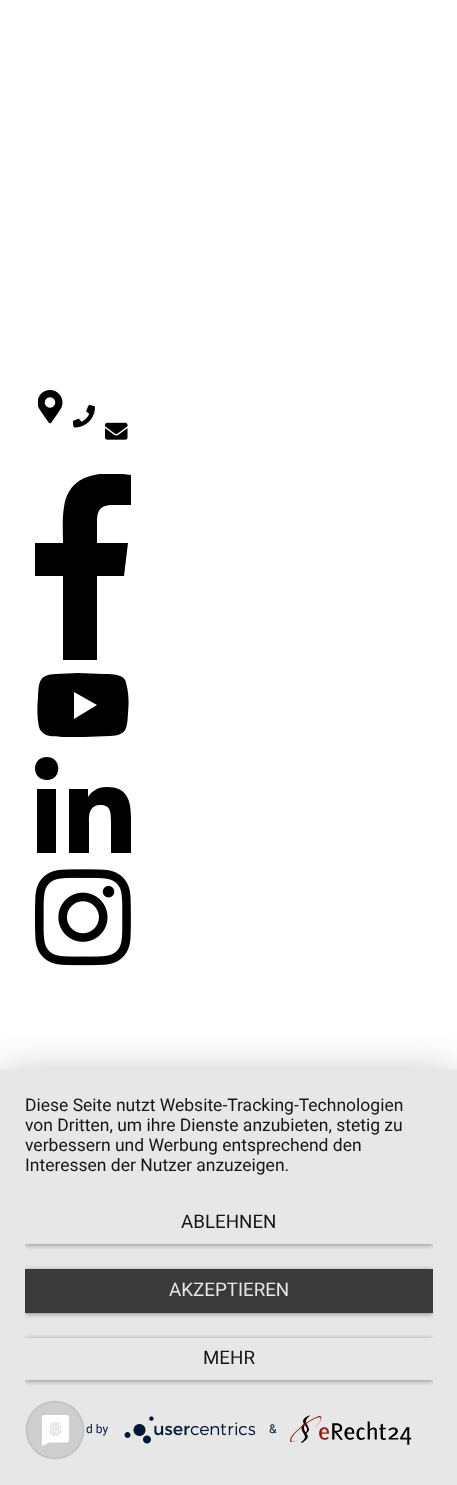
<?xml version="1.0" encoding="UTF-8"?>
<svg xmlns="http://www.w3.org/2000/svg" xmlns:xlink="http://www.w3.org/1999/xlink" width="457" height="1485">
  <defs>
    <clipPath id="clip1"><rect x="35" y="474" width="96" height="186" /></clipPath>
    <clipPath id="clip2"><rect x="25" y="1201" width="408" height="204" /></clipPath>
  </defs>
  <rect width="100%" height="100%" fill="#ffffff" />
  <image x="38" y="390" width="25" height="34" xlink:href="image1.png" />
  <image x="73" y="405" width="22" height="23" xlink:href="image2.png" />
  <image x="105" y="422" width="23" height="18" xlink:href="image3.png" />
  <g clip-path="url(#clip1)">
    <path d="M 63 660 v -84 h -28 v -33 h 28 c 0 -11 -1 -24 1 -36 c 5 -35 39 -36 67 -32 v 30 h -18 c -13 0 -16 6 -16 16 v 22 h 31 l -4 33 h -27 v 84" fill="#000000" />
  </g>
  <path d="M 126 683 c 0 -3 -3 -6 -6 -7 c -5 -2 -11 -2 -16 -2 l -26 -1 l -22 1 c -17 1 -17 7 -18 23 c -1 10 -1 21 1 30 c 1 4 4 6 7 8 c 5 2 11 1 16 2 h 22 l 26 -1 c 17 -1 17 -7 18 -23 c 1 -9 1 -20 -2 -30 z m -52 36 v -27 l 23 13 z" fill="#000000" />
  <path d="M 56 853 h -19 v -64 h 19 z m -9 -73 c -16 0 -16 -23 0 -23 c 15 0 15 23 0 23 z m 84 73 h -20 v -31 c 0 -8 0 -17 -10 -17 c -11 0 -12 8 -12 16 v 32 h -20 v -64 h 19 v 8 c 3 -5 9 -10 19 -10 c 20 0 24 13 24 31 z" fill="#000000" />
  <image x="35" y="869" width="96" height="97" xlink:href="image4.png" />
  <rect y="1078" width="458" height="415" fill="#000000" fill-opacity="0.3" filter="blur(22.5px)" />
  <rect y="1070" width="457" height="415" fill="#e7e7e7" />
  <g clip-path="url(#clip2)">
    <rect x="25" y="1203" width="408" height="42" fill="#000000" fill-opacity="0.4" filter="blur(2.5px)" />
  </g>
  <rect x="25" y="1201" width="408" height="43" fill="#e7e7e7" />
  <g clip-path="url(#clip2)">
    <rect x="25" y="1270" width="408" height="44" fill="#000000" fill-opacity="0.4" filter="blur(2.5px)" />
  </g>
  <rect x="25" y="1269" width="408" height="44" fill="#3a3a3a" />
  <g clip-path="url(#clip2)">
    <rect x="25" y="1339" width="408" height="42" fill="#000000" fill-opacity="0.4" filter="blur(2.5px)" />
  </g>
  <rect x="25" y="1338" width="408" height="42" fill="#e7e7e7" />
  <image x="124" y="1416" width="132" height="28" xlink:href="image5.png" />
  <image x="290" y="1415" width="122" height="30" xlink:href="image6.png" />
  <image x="25" y="1400" width="60" height="60" xlink:href="image7.png" />
  <text x="25" y="1111" style="font-family: Roboto; font-size: 17.5px; fill: #161616">Diese Seite nutzt Website-Tracking-Technologien</text>
  <text x="25" y="1131" style="font-family: Roboto; font-size: 17.5px; fill: #161616">von Dritten, um ihre Dienste anzubieten, stetig zu</text>
  <text x="25" y="1151" style="font-family: Roboto; font-size: 17.5px; fill: #161616">verbessern und Werbung entsprechend den</text>
  <text x="25" y="1171" style="font-family: Roboto; font-size: 17.5px; fill: #161616">Interessen der Nutzer anzuzeigen.</text>
  <text x="181" y="1228" style="font-family: Roboto; font-size: 18.75px; fill: #161616">ABLEHNEN</text>
  <text x="169" y="1296" style="font-family: Roboto; font-size: 18.75px; fill: #e6e6e6">AKZEPTIEREN</text>
  <text x="203" y="1364" style="font-family: Roboto; font-size: 18.75px; fill: #161616">MEHR</text>
  <text x="86" y="1433" style="font-family: Roboto; font-size: 12px; fill: #021836">d by</text>
  <text x="269" y="1433" style="font-family: Roboto; font-size: 12px; fill: #021836">&amp;</text>
</svg>
